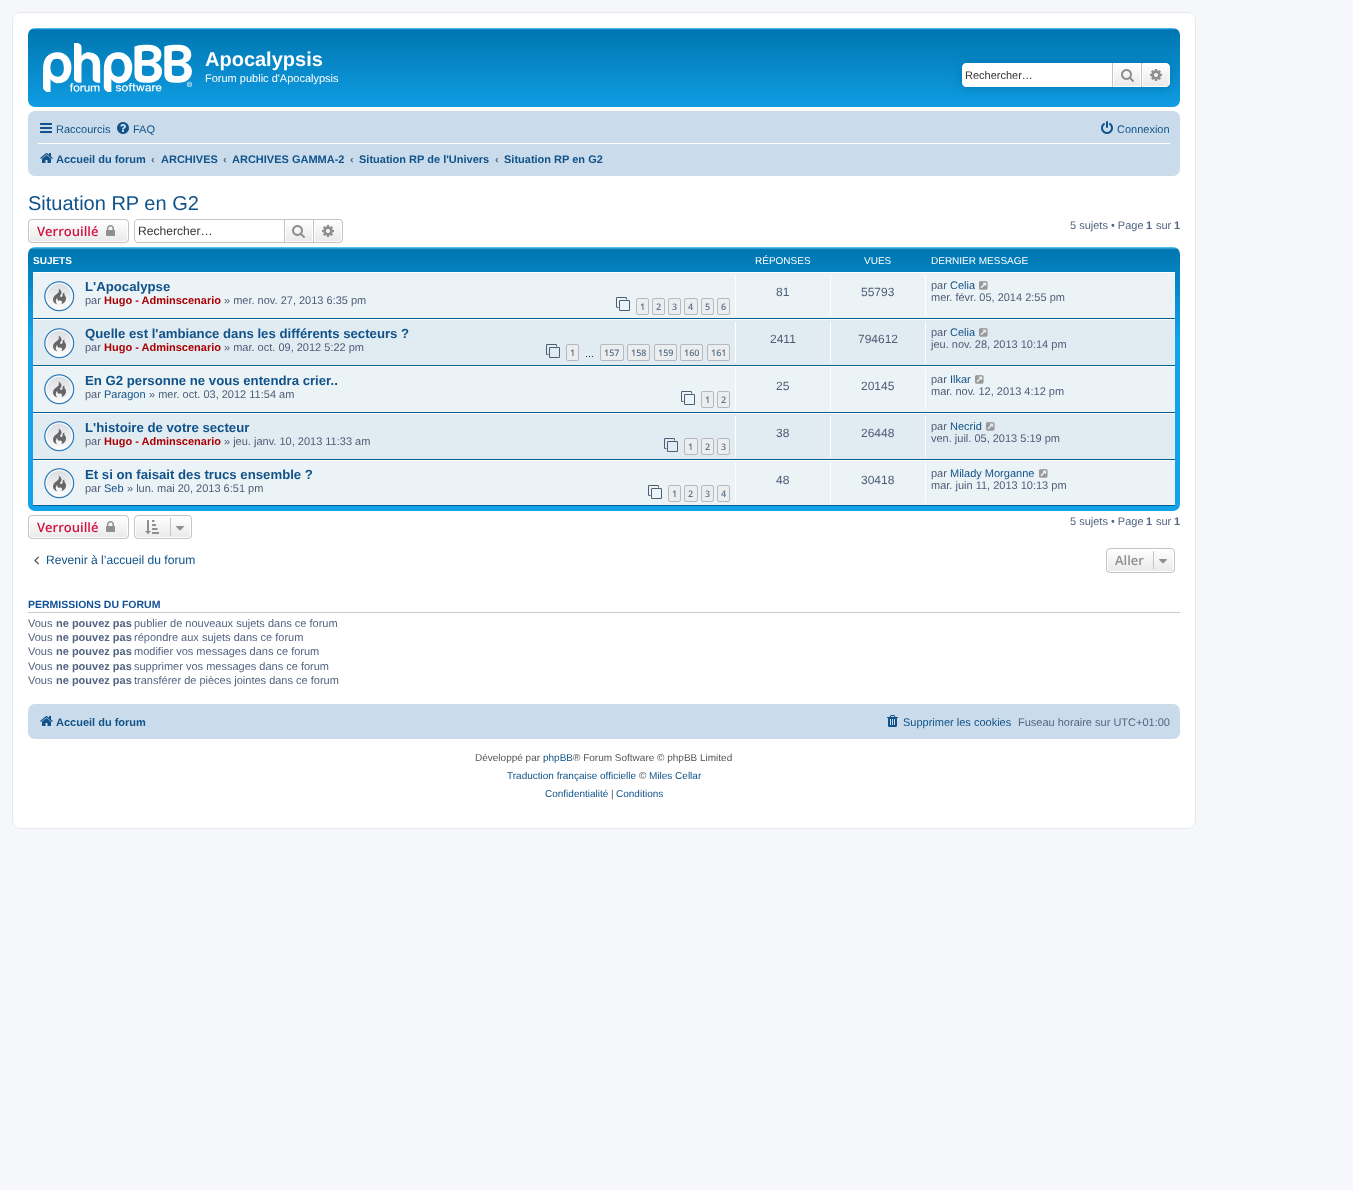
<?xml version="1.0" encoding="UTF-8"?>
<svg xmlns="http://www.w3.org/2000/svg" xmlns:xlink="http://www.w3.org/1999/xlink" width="1353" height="1190">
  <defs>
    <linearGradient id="g1" gradientUnits="userSpaceOnUse" x1="604" y1="28" x2="604" y2="120"><stop offset="0" stop-color="#6aceff" /><stop offset="0.02" stop-color="#0076b1" /><stop offset="1" stop-color="#12a3eb" /></linearGradient>
    <linearGradient id="g2" gradientUnits="userSpaceOnUse" x1="1127" y1="63" x2="1127" y2="87"><stop offset="0" stop-color="#ffffff" /><stop offset="1" stop-color="#e9e9e9" /></linearGradient>
    <linearGradient id="g3" gradientUnits="userSpaceOnUse" x1="1156" y1="63" x2="1156" y2="87"><stop offset="0" stop-color="#ffffff" /><stop offset="1" stop-color="#e9e9e9" /></linearGradient>
    <clipPath id="clip1"><rect x="28" y="219" width="101" height="24" rx="4" /></clipPath>
    <linearGradient id="g4" gradientUnits="userSpaceOnUse" x1="79" y1="220" x2="79" y2="242"><stop offset="0" stop-color="#ffffff" /><stop offset="1" stop-color="#e9e9e9" /></linearGradient>
    <linearGradient id="g5" gradientUnits="userSpaceOnUse" x1="299" y1="220" x2="299" y2="242"><stop offset="0" stop-color="#ffffff" /><stop offset="1" stop-color="#e9e9e9" /></linearGradient>
    <linearGradient id="g6" gradientUnits="userSpaceOnUse" x1="328" y1="220" x2="328" y2="242"><stop offset="0" stop-color="#ffffff" /><stop offset="1" stop-color="#e9e9e9" /></linearGradient>
    <linearGradient id="g7" gradientUnits="userSpaceOnUse" x1="604" y1="247" x2="604" y2="511"><stop offset="0" stop-color="#6aceff" /><stop offset="0.01" stop-color="#0076b1" /><stop offset="0.35" stop-color="#12a3eb" /><stop offset="1" stop-color="#12a3eb" /></linearGradient>
    <clipPath id="clip2"><rect x="28" y="515" width="101" height="24" rx="4" /></clipPath>
    <linearGradient id="g8" gradientUnits="userSpaceOnUse" x1="79" y1="516" x2="79" y2="538"><stop offset="0" stop-color="#ffffff" /><stop offset="1" stop-color="#e9e9e9" /></linearGradient>
    <clipPath id="clip3"><rect x="134" y="515" width="58" height="24" rx="4" /></clipPath>
    <linearGradient id="g9" gradientUnits="userSpaceOnUse" x1="163" y1="516" x2="163" y2="538"><stop offset="0" stop-color="#ffffff" /><stop offset="1" stop-color="#e9e9e9" /></linearGradient>
    <clipPath id="clip4"><rect x="1106" y="548" width="69" height="25" rx="4" /></clipPath>
    <linearGradient id="g10" gradientUnits="userSpaceOnUse" x1="1141" y1="549" x2="1141" y2="572"><stop offset="0" stop-color="#ffffff" /><stop offset="1" stop-color="#e9e9e9" /></linearGradient>
  </defs>
  <rect width="100%" height="100%" fill="#f5f7fa" />
  <rect x="12.5" y="12.5" width="1183" height="816" rx="7.5" fill="#ffffff" stroke="#e6e9ed" />
  <rect x="28" y="28" width="1152" height="79" rx="7" fill="url(#g1)" />
  <image x="43" y="43" width="149" height="49" xlink:href="image1.png" />
  <rect x="962" y="63" width="208" height="24" rx="4" fill="#0075b0" filter="blur(5px)" />
  <path d="M 966 63 h 146 v 24 h -146 c -2 0 -4 -2 -4 -4 v -16 c 0 -2 2 -4 4 -4 z" fill="#ffffff" />
  <rect x="1114" y="64" width="26" height="22" fill="url(#g2)" />
  <rect x="1113.5" y="63.5" width="27" height="23" fill="none" stroke="#ffffff" />
  <rect x="1141" y="63" width="1" height="24" fill="#c7c3bf" />
  <rect x="1112" y="63" width="1" height="24" fill="#c7c3bf" />
  <image x="1121" y="69" width="13" height="13" xlink:href="image2.png" />
  <path d="M 1142.5 63.5 h 23.5 c 2 0 3.5 1.5 3.5 3.5 v 16 c 0 2 -1.5 3.5 -3.5 3.5 h -23.5 z" fill="url(#g3)" stroke="#ffffff" />
  <image x="1150" y="69" width="12" height="12" xlink:href="image3.png" />
  <rect x="28" y="111" width="1152" height="65" rx="7" fill="#cadceb" />
  <image x="40" y="123" width="12" height="10" xlink:href="image4.png" />
  <image x="117" y="122" width="12" height="12" xlink:href="image5.png" />
  <image x="1101" y="121" width="12" height="13" xlink:href="image6.png" />
  <rect x="38" y="143" width="1132" height="1" fill="#ffffff" />
  <image x="40" y="153" width="13" height="10" xlink:href="image7.png" />
  <g clip-path="url(#clip1)">
    <rect x="28" y="220" width="101" height="22" fill="url(#g4)" />
  </g>
  <rect x="29.5" y="220.5" width="98" height="21" rx="2.5" fill="none" stroke="#ffffff" />
  <rect x="28.5" y="219.5" width="100" height="23" rx="3.5" fill="none" stroke="#c7c3bf" />
  <image x="106" y="225" width="9" height="11" xlink:href="image8.png" />
  <path d="M 138 219 h 146 v 24 h -146 c -2 0 -4 -2 -4 -4 v -16 c 0 -2 2 -4 4 -4 z m 0 1 h 146 v 22 h -146 c -2 0 -3 -1 -3 -3 v -16 c 0 -2 1 -3 3 -3 z" fill="#c7c3bf" fill-rule="evenodd" />
  <rect x="286" y="223" width="26" height="18" fill="url(#g5)" />
  <rect x="284.5" y="219.5" width="29" height="23" fill="none" stroke="#c7c3bf" />
  <image x="292" y="225" width="13" height="13" xlink:href="image9.png" />
  <path d="M 314.5 220.5 h 24.5 c 1.5 0 2.5 1 2.5 2.5 v 16 c 0 1.5 -1 2.5 -2.5 2.5 h -24.5 z" fill="url(#g6)" stroke="#ffffff" />
  <path d="M 314 219 h 25 c 2 0 4 2 4 4 v 16 c 0 2 -2 4 -4 4 h -25 z m 0 1 h 25 c 1.5 0 3 1.5 3 3 v 16 c 0 1.5 -1.5 3 -3 3 h -25 z" fill="#c7c3bf" fill-rule="evenodd" />
  <image x="322" y="225" width="12" height="12" xlink:href="image10.png" />
  <rect x="28" y="247" width="1152" height="264" rx="7" fill="url(#g7)" />
  <rect x="33" y="273" width="1142" height="45" fill="#ecf3f7" />
  <rect x="33" y="272" width="1142" height="1" fill="#ffffff" />
  <rect x="33" y="318" width="1142" height="1" fill="#00608f" />
  <image x="44" y="281" width="31" height="31" xlink:href="image11.png" />
  <image x="616" y="297" width="14" height="14" xlink:href="image12.png" />
  <rect x="636.5" y="298.5" width="12" height="16" rx="1.5" fill="#ecedee" stroke="#b4bac0" />
  <rect x="652.5" y="298.5" width="12" height="16" rx="1.5" fill="#ecedee" stroke="#b4bac0" />
  <rect x="668.5" y="298.5" width="12" height="16" rx="1.5" fill="#ecedee" stroke="#b4bac0" />
  <rect x="684.5" y="298.5" width="13" height="16" rx="1.5" fill="#ecedee" stroke="#b4bac0" />
  <rect x="701.5" y="298.5" width="12" height="16" rx="1.5" fill="#ecedee" stroke="#b4bac0" />
  <rect x="717.5" y="298.5" width="12" height="16" rx="1.5" fill="#ecedee" stroke="#b4bac0" />
  <rect x="735" y="275" width="1" height="41" fill="#ffffff" />
  <rect x="830" y="275" width="1" height="41" fill="#ffffff" />
  <rect x="925" y="275" width="1" height="41" fill="#ffffff" />
  <image x="979" y="281" width="9" height="9" xlink:href="image13.png" />
  <rect x="33" y="320" width="1142" height="45" fill="#e1ebf2" />
  <rect x="33" y="319" width="1142" height="1" fill="#ffffff" />
  <rect x="33" y="365" width="1142" height="1" fill="#00608f" />
  <image x="44" y="328" width="31" height="31" xlink:href="image14.png" />
  <image x="546" y="344" width="14" height="14" xlink:href="image15.png" />
  <rect x="566.5" y="344.5" width="12" height="16" rx="1.5" fill="#ecedee" stroke="#b4bac0" />
  <rect x="600.5" y="344.5" width="23" height="16" rx="1.5" fill="#ecedee" stroke="#b4bac0" />
  <rect x="627.5" y="344.5" width="22" height="16" rx="1.5" fill="#ecedee" stroke="#b4bac0" />
  <rect x="654.5" y="344.5" width="22" height="16" rx="1.5" fill="#ecedee" stroke="#b4bac0" />
  <rect x="680.5" y="344.5" width="22" height="16" rx="1.5" fill="#ecedee" stroke="#b4bac0" />
  <rect x="707.5" y="344.5" width="22" height="16" rx="1.5" fill="#ecedee" stroke="#b4bac0" />
  <rect x="735" y="322" width="1" height="41" fill="#ffffff" />
  <rect x="830" y="322" width="1" height="41" fill="#ffffff" />
  <rect x="925" y="322" width="1" height="41" fill="#ffffff" />
  <image x="979" y="328" width="9" height="9" xlink:href="image16.png" />
  <rect x="33" y="367" width="1142" height="45" fill="#ecf3f7" />
  <rect x="33" y="366" width="1142" height="1" fill="#ffffff" />
  <rect x="33" y="412" width="1142" height="1" fill="#00608f" />
  <image x="44" y="374" width="31" height="31" xlink:href="image11.png" />
  <image x="681" y="391" width="14" height="14" xlink:href="image12.png" />
  <rect x="701.5" y="391.5" width="12" height="16" rx="1.5" fill="#ecedee" stroke="#b4bac0" />
  <rect x="717.5" y="391.5" width="12" height="16" rx="1.5" fill="#ecedee" stroke="#b4bac0" />
  <rect x="735" y="369" width="1" height="41" fill="#ffffff" />
  <rect x="830" y="369" width="1" height="41" fill="#ffffff" />
  <rect x="925" y="369" width="1" height="41" fill="#ffffff" />
  <image x="975" y="375" width="9" height="9" xlink:href="image13.png" />
  <rect x="33" y="414" width="1142" height="45" fill="#e1ebf2" />
  <rect x="33" y="413" width="1142" height="1" fill="#ffffff" />
  <rect x="33" y="459" width="1142" height="1" fill="#00608f" />
  <image x="44" y="421" width="31" height="31" xlink:href="image14.png" />
  <image x="664" y="438" width="14" height="14" xlink:href="image15.png" />
  <rect x="684.5" y="438.5" width="13" height="16" rx="1.5" fill="#ecedee" stroke="#b4bac0" />
  <rect x="701.5" y="438.5" width="12" height="16" rx="1.5" fill="#ecedee" stroke="#b4bac0" />
  <rect x="717.5" y="438.5" width="12" height="16" rx="1.5" fill="#ecedee" stroke="#b4bac0" />
  <rect x="735" y="416" width="1" height="41" fill="#ffffff" />
  <rect x="830" y="416" width="1" height="41" fill="#ffffff" />
  <rect x="925" y="416" width="1" height="41" fill="#ffffff" />
  <image x="986" y="422" width="9" height="9" xlink:href="image16.png" />
  <rect x="33" y="461" width="1142" height="44" fill="#ecf3f7" />
  <rect x="33" y="460" width="1142" height="1" fill="#ffffff" />
  <rect x="33" y="505" width="1142" height="1" fill="#00608f" />
  <image x="44" y="468" width="31" height="31" xlink:href="image11.png" />
  <image x="648" y="485" width="14" height="14" xlink:href="image12.png" />
  <rect x="668.5" y="485.5" width="12" height="16" rx="1.5" fill="#ecedee" stroke="#b4bac0" />
  <rect x="684.5" y="485.5" width="13" height="16" rx="1.5" fill="#ecedee" stroke="#b4bac0" />
  <rect x="701.5" y="485.5" width="12" height="16" rx="1.5" fill="#ecedee" stroke="#b4bac0" />
  <rect x="717.5" y="485.5" width="12" height="16" rx="1.5" fill="#ecedee" stroke="#b4bac0" />
  <rect x="735" y="463" width="1" height="40" fill="#ffffff" />
  <rect x="830" y="463" width="1" height="40" fill="#ffffff" />
  <rect x="925" y="463" width="1" height="40" fill="#ffffff" />
  <image x="1039" y="469" width="9" height="9" xlink:href="image13.png" />
  <g clip-path="url(#clip2)">
    <rect x="28" y="516" width="101" height="22" fill="url(#g8)" />
  </g>
  <rect x="29.5" y="516.5" width="98" height="21" rx="2.5" fill="none" stroke="#ffffff" />
  <rect x="28.5" y="515.5" width="100" height="23" rx="3.5" fill="none" stroke="#c7c3bf" />
  <image x="106" y="521" width="9" height="11" xlink:href="image8.png" />
  <g clip-path="url(#clip3)">
    <rect x="134" y="516" width="58" height="22" fill="url(#g9)" />
  </g>
  <rect x="135.5" y="516.5" width="55" height="21" rx="2.5" fill="none" stroke="#ffffff" />
  <rect x="134.5" y="515.5" width="57" height="23" rx="3.5" fill="none" stroke="#c7c3bf" />
  <image x="145" y="520" width="14" height="14" xlink:href="image17.png" />
  <rect x="170" y="518" width="1" height="18" fill="#c7c3bf" />
  <image x="176" y="526" width="8" height="5" xlink:href="image18.png" />
  <image x="34" y="556" width="5" height="9" xlink:href="image19.png" />
  <g clip-path="url(#clip4)">
    <rect x="1106" y="549" width="69" height="23" fill="url(#g10)" />
  </g>
  <rect x="1107.5" y="549.5" width="66" height="22" rx="2.5" fill="none" stroke="#ffffff" />
  <rect x="1106.5" y="548.5" width="68" height="24" rx="3.5" fill="none" stroke="#c7c3bf" />
  <rect x="1153" y="551" width="1" height="18" fill="#c7c3bf" />
  <image x="1159" y="559" width="8" height="5" xlink:href="image18.png" />
  <rect x="28" y="612" width="1152" height="1" fill="#cccccc" />
  <rect x="28" y="704" width="1152" height="35" rx="7" fill="#cadceb" />
  <image x="40" y="716" width="13" height="10" xlink:href="image7.png" />
  <image x="887" y="715" width="11" height="12" xlink:href="image20.png" />
  <text x="205" y="66" style="font-family: Liberation Sans; font-size: 20px; font-weight: bold; fill: #ffffff">Apocalypsis</text>
  <text x="205" y="82" style="font-family: Liberation Sans; font-size: 11px; fill: #ffffff">Forum public d'Apocalypsis</text>
  <text x="965" y="79" style="font-family: Liberation Sans; font-size: 11px; fill: #333333">Rechercher…</text>
  <text x="56" y="133" style="font-family: Liberation Sans; font-size: 11px; fill: #105289">Raccourcis</text>
  <text x="133" y="133" style="font-family: Liberation Sans; font-size: 11px; fill: #105289">FAQ</text>
  <text x="1117" y="133" style="font-family: Liberation Sans; font-size: 11px; fill: #105289">Connexion</text>
  <text x="56" y="163" style="font-family: Liberation Sans; font-size: 11px; font-weight: bold; fill: #105289">Accueil du forum</text>
  <text x="151" y="163" style="font-family: Liberation Sans; font-size: 11px; font-weight: bold; fill: #536482">‹</text>
  <text x="161" y="163" style="font-family: Liberation Sans; font-size: 11px; font-weight: bold; fill: #105289">ARCHIVES</text>
  <text x="223" y="163" style="font-family: Liberation Sans; font-size: 11px; font-weight: bold; fill: #536482">‹</text>
  <text x="232" y="163" style="font-family: Liberation Sans; font-size: 11px; font-weight: bold; fill: #105289">ARCHIVES GAMMA-2</text>
  <text x="350" y="163" style="font-family: Liberation Sans; font-size: 11px; font-weight: bold; fill: #536482">‹</text>
  <text x="359" y="163" style="font-family: Liberation Sans; font-size: 11px; font-weight: bold; fill: #105289">Situation RP de l'Univers</text>
  <text x="495" y="163" style="font-family: Liberation Sans; font-size: 11px; font-weight: bold; fill: #536482">‹</text>
  <text x="504" y="163" style="font-family: Liberation Sans; font-size: 11px; font-weight: bold; fill: #105289">Situation RP en G2</text>
  <text x="28" y="210" style="font-family: Liberation Sans; font-size: 20px; fill: #105289">Situation RP en G2</text>
  <text x="37" y="236" style="font-family: Open Sans; font-size: 13px; font-weight: 600; fill: #d31141">Verrouillé</text>
  <text x="138" y="235" style="font-family: Liberation Sans; font-size: 12.1px; fill: #333333">Rechercher…</text>
  <text x="1070" y="229" style="font-family: Liberation Sans; font-size: 11px; fill: #536482">5 sujets • Page</text>
  <text x="1146" y="229" style="font-family: Liberation Sans; font-size: 11px; font-weight: bold; fill: #536482">1</text>
  <text x="1156" y="229" style="font-family: Liberation Sans; font-size: 11px; fill: #536482">sur</text>
  <text x="1174" y="229" style="font-family: Liberation Sans; font-size: 11px; font-weight: bold; fill: #536482">1</text>
  <text x="33" y="264" style="font-family: Liberation Sans; font-size: 10px; font-weight: bold; fill: #ffffff">SUJETS</text>
  <text x="755" y="264" style="font-family: Liberation Sans; font-size: 10px; fill: #ffffff">RÉPONSES</text>
  <text x="864" y="264" style="font-family: Liberation Sans; font-size: 10px; fill: #ffffff">VUES</text>
  <text x="931" y="264" style="font-family: Liberation Sans; font-size: 10px; fill: #ffffff">DERNIER MESSAGE</text>
  <text x="85" y="291" style="font-family: Liberation Sans; font-size: 13.2px; font-weight: bold; fill: #105289">L'Apocalypse</text>
  <text x="85" y="304" style="font-family: Liberation Sans; font-size: 11px; fill: #4c5d77">par</text>
  <text x="104" y="304" style="font-family: Liberation Sans; font-size: 11px; font-weight: bold; fill: #aa0000">Hugo - Adminscenario</text>
  <text x="224" y="304" style="font-family: Liberation Sans; font-size: 11px; fill: #4c5d77">» mer. nov. 27, 2013 6:35 pm</text>
  <text x="640" y="310" style="font-family: Open Sans; font-size: 9px; font-weight: 600; fill: #5c758c">1</text>
  <text x="656" y="310" style="font-family: Open Sans; font-size: 9px; font-weight: 600; fill: #5c758c">2</text>
  <text x="672" y="310" style="font-family: Open Sans; font-size: 9px; font-weight: 600; fill: #5c758c">3</text>
  <text x="688" y="310" style="font-family: Open Sans; font-size: 9px; font-weight: 600; fill: #5c758c">4</text>
  <text x="705" y="310" style="font-family: Open Sans; font-size: 9px; font-weight: 600; fill: #5c758c">5</text>
  <text x="721" y="310" style="font-family: Open Sans; font-size: 9px; font-weight: 600; fill: #5c758c">6</text>
  <text x="776" y="296" style="font-family: Liberation Sans; font-size: 12px; fill: #4c5d77">81</text>
  <text x="861" y="296" style="font-family: Liberation Sans; font-size: 12px; fill: #4c5d77">55793</text>
  <text x="931" y="289" style="font-family: Liberation Sans; font-size: 11px; fill: #4c5d77">par</text>
  <text x="950" y="289" style="font-family: Liberation Sans; font-size: 11px; fill: #105289">Celia</text>
  <text x="931" y="301" style="font-family: Liberation Sans; font-size: 11px; fill: #4c5d77">mer. févr. 05, 2014 2:55 pm</text>
  <text x="85" y="338" style="font-family: Liberation Sans; font-size: 13.2px; font-weight: bold; fill: #105289">Quelle est l'ambiance dans les différents secteurs ?</text>
  <text x="85" y="351" style="font-family: Liberation Sans; font-size: 11px; fill: #4c5d77">par</text>
  <text x="104" y="351" style="font-family: Liberation Sans; font-size: 11px; font-weight: bold; fill: #aa0000">Hugo - Adminscenario</text>
  <text x="224" y="351" style="font-family: Liberation Sans; font-size: 11px; fill: #4c5d77">» mar. oct. 09, 2012 5:22 pm</text>
  <text x="570" y="356" style="font-family: Open Sans; font-size: 9px; font-weight: 600; fill: #5c758c">1</text>
  <text x="585" y="357" style="font-family: Liberation Sans; font-size: 9px; fill: #000000">…</text>
  <text x="604" y="356" style="font-family: Open Sans; font-size: 9px; font-weight: 600; fill: #5c758c">157</text>
  <text x="631" y="356" style="font-family: Open Sans; font-size: 9px; font-weight: 600; fill: #5c758c">158</text>
  <text x="658" y="356" style="font-family: Open Sans; font-size: 9px; font-weight: 600; fill: #5c758c">159</text>
  <text x="684" y="356" style="font-family: Open Sans; font-size: 9px; font-weight: 600; fill: #5c758c">160</text>
  <text x="711" y="356" style="font-family: Open Sans; font-size: 9px; font-weight: 600; fill: #5c758c">161</text>
  <text x="770" y="343" style="font-family: Liberation Sans; font-size: 12px; fill: #4c5d77">2411</text>
  <text x="858" y="343" style="font-family: Liberation Sans; font-size: 12px; fill: #4c5d77">794612</text>
  <text x="931" y="336" style="font-family: Liberation Sans; font-size: 11px; fill: #4c5d77">par</text>
  <text x="950" y="336" style="font-family: Liberation Sans; font-size: 11px; fill: #105289">Celia</text>
  <text x="931" y="348" style="font-family: Liberation Sans; font-size: 11px; fill: #4c5d77">jeu. nov. 28, 2013 10:14 pm</text>
  <text x="85" y="385" style="font-family: Liberation Sans; font-size: 13.2px; font-weight: bold; fill: #105289">En G2 personne ne vous entendra crier..</text>
  <text x="85" y="398" style="font-family: Liberation Sans; font-size: 11px; fill: #4c5d77">par</text>
  <text x="104" y="398" style="font-family: Liberation Sans; font-size: 11px; fill: #105289">Paragon</text>
  <text x="149" y="398" style="font-family: Liberation Sans; font-size: 11px; fill: #4c5d77">» mer. oct. 03, 2012 11:54 am</text>
  <text x="705" y="403" style="font-family: Open Sans; font-size: 9px; font-weight: 600; fill: #5c758c">1</text>
  <text x="721" y="403" style="font-family: Open Sans; font-size: 9px; font-weight: 600; fill: #5c758c">2</text>
  <text x="776" y="390" style="font-family: Liberation Sans; font-size: 12px; fill: #4c5d77">25</text>
  <text x="861" y="390" style="font-family: Liberation Sans; font-size: 12px; fill: #4c5d77">20145</text>
  <text x="931" y="383" style="font-family: Liberation Sans; font-size: 11px; fill: #4c5d77">par</text>
  <text x="950" y="383" style="font-family: Liberation Sans; font-size: 11px; fill: #105289">Ilkar</text>
  <text x="931" y="395" style="font-family: Liberation Sans; font-size: 11px; fill: #4c5d77">mar. nov. 12, 2013 4:12 pm</text>
  <text x="85" y="432" style="font-family: Liberation Sans; font-size: 13.2px; font-weight: bold; fill: #105289">L'histoire de votre secteur</text>
  <text x="85" y="445" style="font-family: Liberation Sans; font-size: 11px; fill: #4c5d77">par</text>
  <text x="104" y="445" style="font-family: Liberation Sans; font-size: 11px; font-weight: bold; fill: #aa0000">Hugo - Adminscenario</text>
  <text x="224" y="445" style="font-family: Liberation Sans; font-size: 11px; fill: #4c5d77">» jeu. janv. 10, 2013 11:33 am</text>
  <text x="688" y="450" style="font-family: Open Sans; font-size: 9px; font-weight: 600; fill: #5c758c">1</text>
  <text x="705" y="450" style="font-family: Open Sans; font-size: 9px; font-weight: 600; fill: #5c758c">2</text>
  <text x="721" y="450" style="font-family: Open Sans; font-size: 9px; font-weight: 600; fill: #5c758c">3</text>
  <text x="776" y="437" style="font-family: Liberation Sans; font-size: 12px; fill: #4c5d77">38</text>
  <text x="861" y="437" style="font-family: Liberation Sans; font-size: 12px; fill: #4c5d77">26448</text>
  <text x="931" y="430" style="font-family: Liberation Sans; font-size: 11px; fill: #4c5d77">par</text>
  <text x="950" y="430" style="font-family: Liberation Sans; font-size: 11px; fill: #105289">Necrid</text>
  <text x="931" y="442" style="font-family: Liberation Sans; font-size: 11px; fill: #4c5d77">ven. juil. 05, 2013 5:19 pm</text>
  <text x="85" y="479" style="font-family: Liberation Sans; font-size: 13.2px; font-weight: bold; fill: #105289">Et si on faisait des trucs ensemble ?</text>
  <text x="85" y="492" style="font-family: Liberation Sans; font-size: 11px; fill: #4c5d77">par</text>
  <text x="104" y="492" style="font-family: Liberation Sans; font-size: 11px; fill: #105289">Seb</text>
  <text x="127" y="492" style="font-family: Liberation Sans; font-size: 11px; fill: #4c5d77">» lun. mai 20, 2013 6:51 pm</text>
  <text x="672" y="497" style="font-family: Open Sans; font-size: 9px; font-weight: 600; fill: #5c758c">1</text>
  <text x="688" y="497" style="font-family: Open Sans; font-size: 9px; font-weight: 600; fill: #5c758c">2</text>
  <text x="705" y="497" style="font-family: Open Sans; font-size: 9px; font-weight: 600; fill: #5c758c">3</text>
  <text x="721" y="497" style="font-family: Open Sans; font-size: 9px; font-weight: 600; fill: #5c758c">4</text>
  <text x="776" y="484" style="font-family: Liberation Sans; font-size: 12px; fill: #4c5d77">48</text>
  <text x="861" y="484" style="font-family: Liberation Sans; font-size: 12px; fill: #4c5d77">30418</text>
  <text x="931" y="477" style="font-family: Liberation Sans; font-size: 11px; fill: #4c5d77">par</text>
  <text x="950" y="477" style="font-family: Liberation Sans; font-size: 11px; fill: #105289">Milady Morganne</text>
  <text x="931" y="489" style="font-family: Liberation Sans; font-size: 11px; fill: #4c5d77">mar. juin 11, 2013 10:13 pm</text>
  <text x="37" y="532" style="font-family: Open Sans; font-size: 13px; font-weight: 600; fill: #d31141">Verrouillé</text>
  <text x="1070" y="525" style="font-family: Liberation Sans; font-size: 11px; fill: #536482">5 sujets • Page</text>
  <text x="1146" y="525" style="font-family: Liberation Sans; font-size: 11px; font-weight: bold; fill: #536482">1</text>
  <text x="1156" y="525" style="font-family: Liberation Sans; font-size: 11px; fill: #536482">sur</text>
  <text x="1174" y="525" style="font-family: Liberation Sans; font-size: 11px; font-weight: bold; fill: #536482">1</text>
  <text x="46" y="564" style="font-family: Liberation Sans; font-size: 12.1px; fill: #105289">Revenir à l’accueil du forum</text>
  <text x="1115" y="565" style="font-family: Open Sans; font-size: 13px; font-weight: 600; fill: #8f8f8f">Aller</text>
  <text x="28" y="608" style="font-family: Liberation Sans; font-size: 10.5px; font-weight: bold; fill: #115098">PERMISSIONS DU FORUM</text>
  <text x="28" y="627" style="font-family: Liberation Sans; font-size: 11px; fill: #536482">Vous</text>
  <text x="56" y="627" style="font-family: Liberation Sans; font-size: 11px; font-weight: bold; fill: #536482">ne pouvez pas</text>
  <text x="134" y="627" style="font-family: Liberation Sans; font-size: 11px; fill: #536482">publier de nouveaux sujets dans ce forum</text>
  <text x="28" y="641" style="font-family: Liberation Sans; font-size: 11px; fill: #536482">Vous</text>
  <text x="56" y="641" style="font-family: Liberation Sans; font-size: 11px; font-weight: bold; fill: #536482">ne pouvez pas</text>
  <text x="134" y="641" style="font-family: Liberation Sans; font-size: 11px; fill: #536482">répondre aux sujets dans ce forum</text>
  <text x="28" y="655" style="font-family: Liberation Sans; font-size: 11px; fill: #536482">Vous</text>
  <text x="56" y="655" style="font-family: Liberation Sans; font-size: 11px; font-weight: bold; fill: #536482">ne pouvez pas</text>
  <text x="134" y="655" style="font-family: Liberation Sans; font-size: 11px; fill: #536482">modifier vos messages dans ce forum</text>
  <text x="28" y="670" style="font-family: Liberation Sans; font-size: 11px; fill: #536482">Vous</text>
  <text x="56" y="670" style="font-family: Liberation Sans; font-size: 11px; font-weight: bold; fill: #536482">ne pouvez pas</text>
  <text x="134" y="670" style="font-family: Liberation Sans; font-size: 11px; fill: #536482">supprimer vos messages dans ce forum</text>
  <text x="28" y="684" style="font-family: Liberation Sans; font-size: 11px; fill: #536482">Vous</text>
  <text x="56" y="684" style="font-family: Liberation Sans; font-size: 11px; font-weight: bold; fill: #536482">ne pouvez pas</text>
  <text x="134" y="684" style="font-family: Liberation Sans; font-size: 11px; fill: #536482">transférer de pièces jointes dans ce forum</text>
  <text x="56" y="726" style="font-family: Liberation Sans; font-size: 11px; font-weight: bold; fill: #105289">Accueil du forum</text>
  <text x="903" y="726" style="font-family: Liberation Sans; font-size: 11px; fill: #105289">Supprimer les cookies</text>
  <text x="1018" y="726" style="font-family: Liberation Sans; font-size: 11px; fill: #536482">Fuseau horaire sur UTC+01:00</text>
  <text x="475" y="761" style="font-family: Liberation Sans; font-size: 10px; fill: #555555">Développé par</text>
  <text x="543" y="761" style="font-family: Liberation Sans; font-size: 10px; fill: #105289">phpBB</text>
  <text x="573" y="761" style="font-family: Liberation Sans; font-size: 10px; fill: #555555">® Forum Software © phpBB Limited</text>
  <text x="507" y="779" style="font-family: Liberation Sans; font-size: 10px; fill: #105289">Traduction française officielle</text>
  <text x="639" y="779" style="font-family: Liberation Sans; font-size: 10px; fill: #555555">©</text>
  <text x="649" y="779" style="font-family: Liberation Sans; font-size: 10px; fill: #105289">Miles Cellar</text>
  <text x="545" y="797" style="font-family: Liberation Sans; font-size: 10px; fill: #105289">Confidentialité</text>
  <text x="611" y="797" style="font-family: Liberation Sans; font-size: 10px; fill: #555555">|</text>
  <text x="616" y="797" style="font-family: Liberation Sans; font-size: 10px; fill: #105289">Conditions</text>
</svg>
